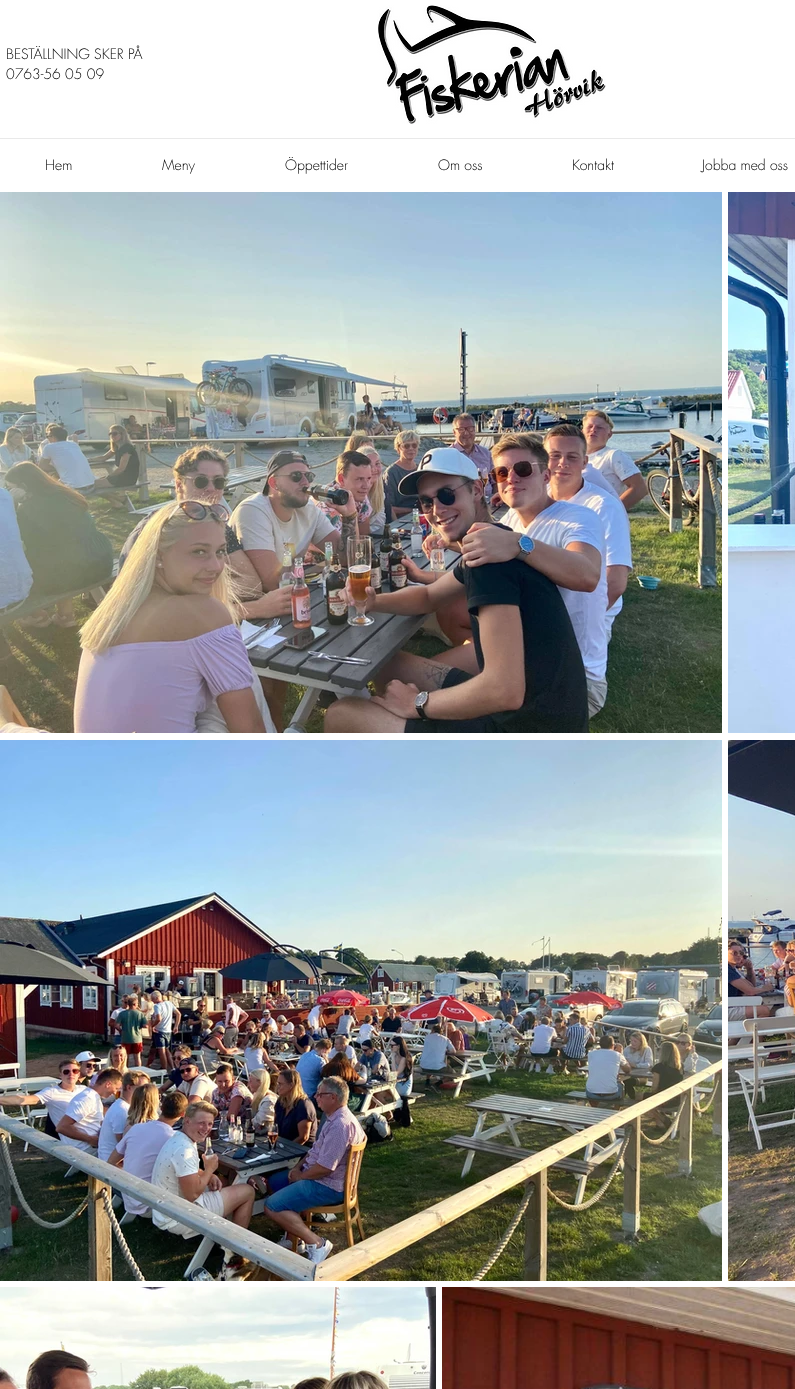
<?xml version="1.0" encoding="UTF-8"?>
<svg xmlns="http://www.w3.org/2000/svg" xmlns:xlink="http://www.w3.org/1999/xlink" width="795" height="1389">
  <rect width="100%" height="100%" fill="#ffffff" />
  <image x="377" y="5" width="229" height="119" xlink:href="image1.png" />
  <rect y="138" width="795" height="1" fill="#e9e9e9" />
  <image x="0" y="192" width="722" height="541" xlink:href="image2.png" />
  <image x="728" y="192" width="67" height="541" xlink:href="image3.png" />
  <image x="0" y="740" width="722" height="541" xlink:href="image4.png" />
  <image x="728" y="740" width="67" height="541" xlink:href="image5.png" />
  <image x="0" y="1287" width="436" height="102" xlink:href="image6.png" />
  <image x="442" y="1287" width="353" height="102" xlink:href="image7.png" />
  <text x="6" y="59" style="font-family: futura; font-size: 14px; font-weight: 300; fill: #000000">BESTÄLLNING SKER PÅ</text>
  <text x="6" y="79" style="font-family: futura; font-size: 14px; font-weight: 300; fill: #000000">0763-56 05 09</text>
  <text x="45" y="170" style="font-family: futura; font-size: 14px; font-weight: 300; fill: #000000">Hem</text>
  <text x="162" y="170" style="font-family: futura; font-size: 14px; font-weight: 300; fill: #000000">Meny</text>
  <text x="285" y="170" style="font-family: futura; font-size: 14px; font-weight: 300; fill: #000000">Öppettider</text>
  <text x="438" y="170" style="font-family: futura; font-size: 14px; font-weight: 300; fill: #000000">Om oss</text>
  <text x="572" y="170" style="font-family: futura; font-size: 14px; font-weight: 300; fill: #000000">Kontakt</text>
  <text x="702" y="170" style="font-family: futura; font-size: 14px; font-weight: 300; fill: #000000">Jobba med oss</text>
</svg>
